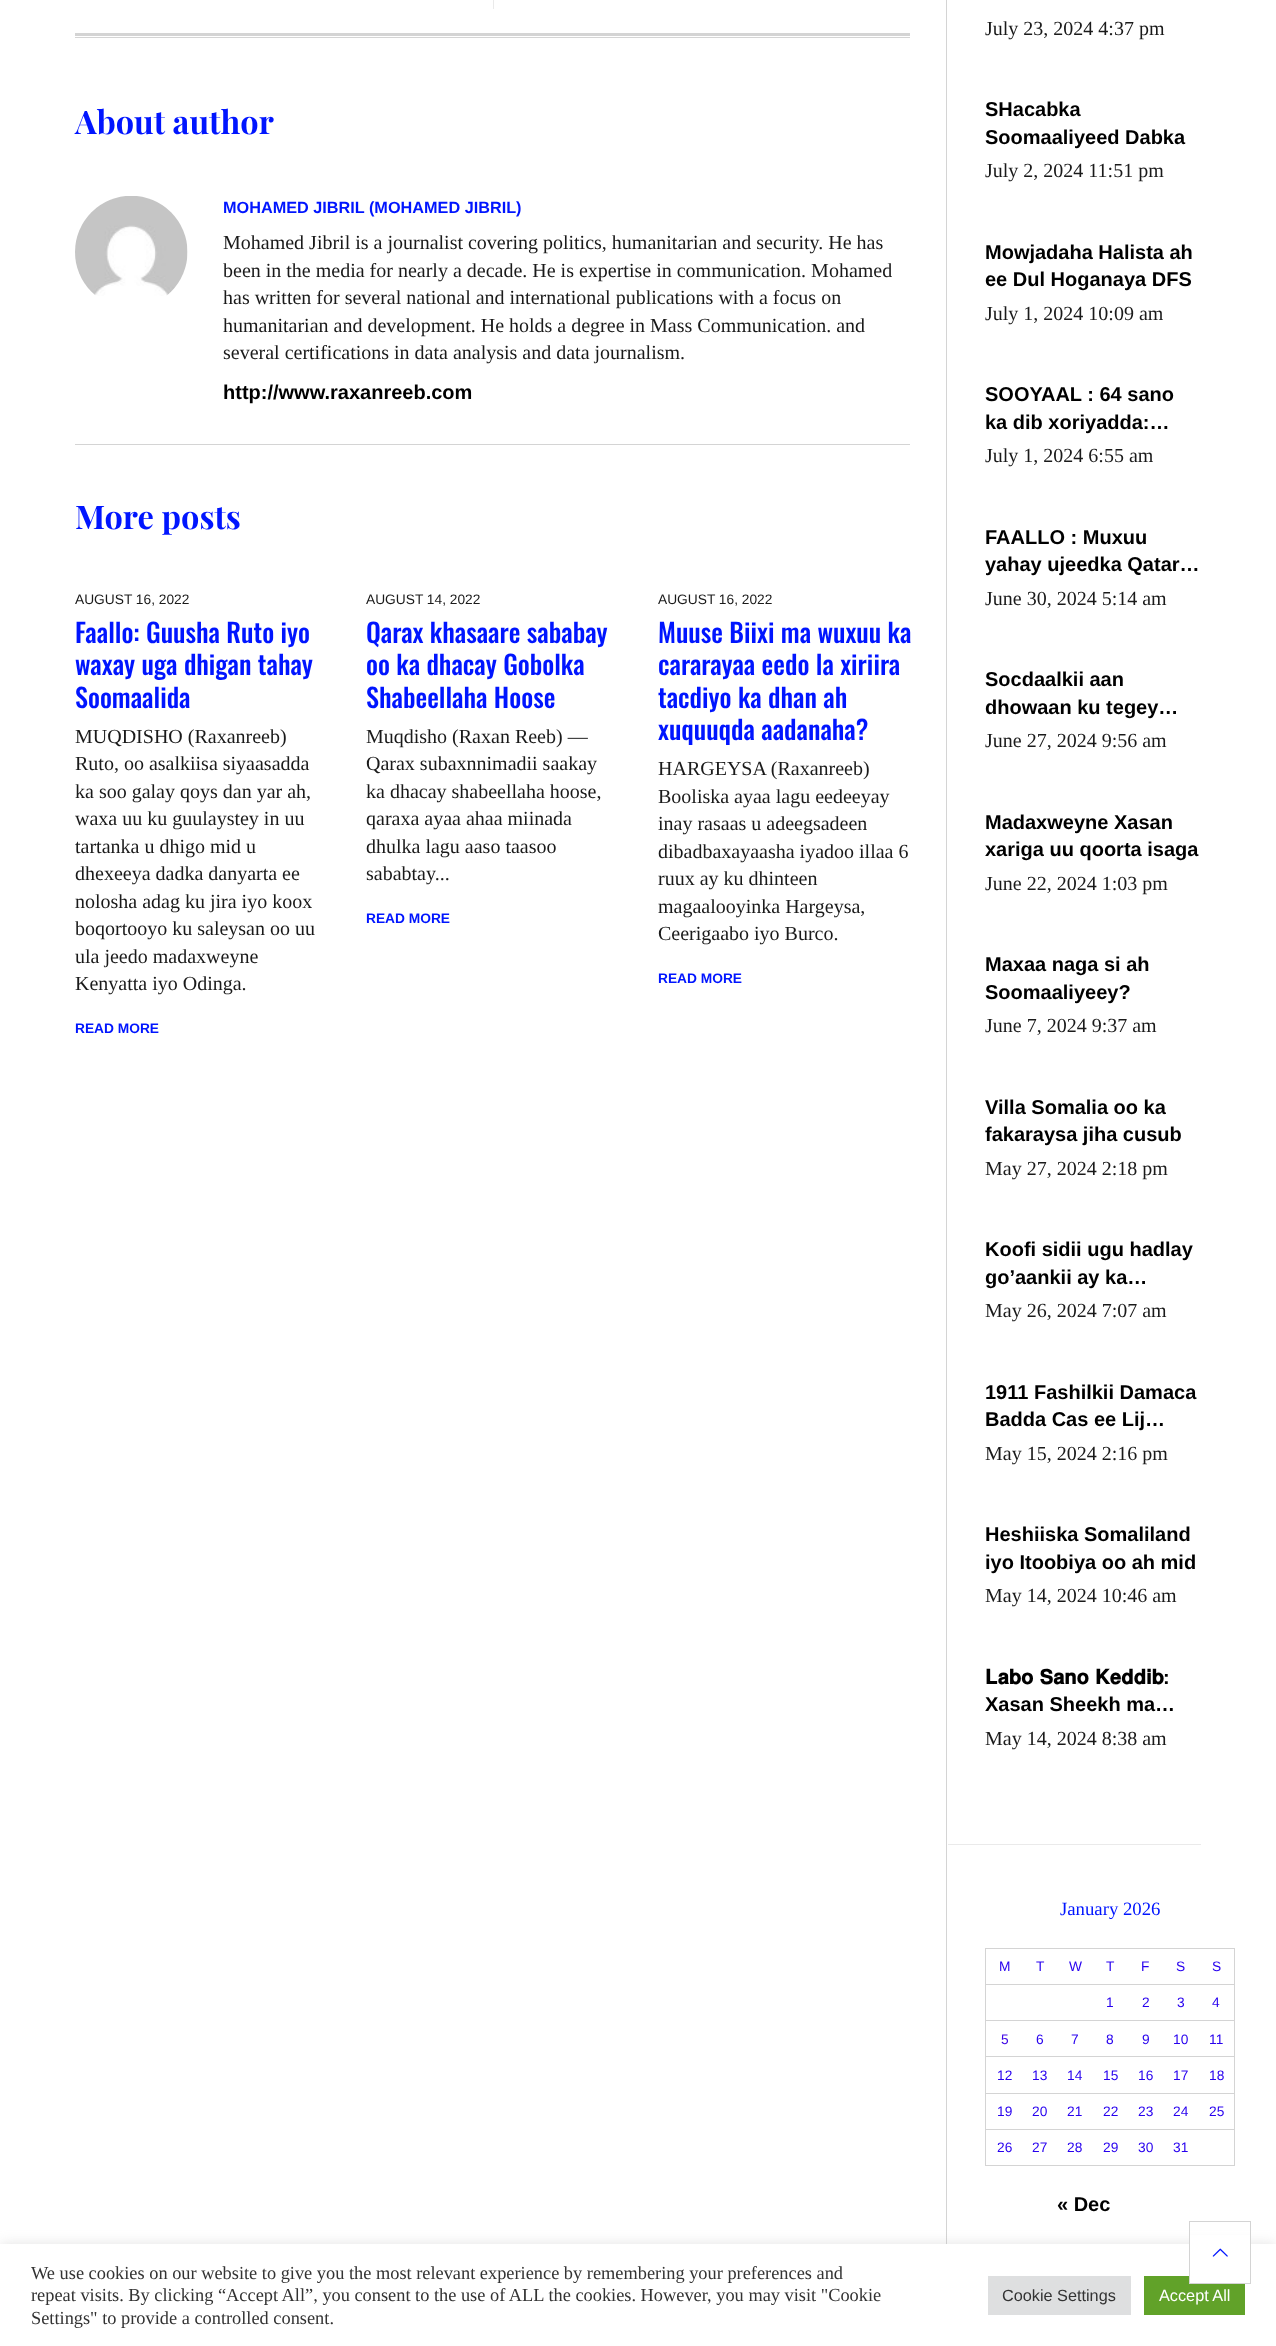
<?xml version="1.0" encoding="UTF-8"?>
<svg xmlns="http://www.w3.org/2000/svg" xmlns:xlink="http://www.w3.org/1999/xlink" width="1276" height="2346">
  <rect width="100%" height="100%" fill="#ffffff" />
  <rect x="493" width="1" height="9" fill="#eaeaea" />
  <rect x="75" y="37" width="835" height="1" fill="#d4d4d4" />
  <rect x="75" y="33" width="835" height="3" fill="#d4d4d4" />
  <image x="75" y="196" width="113" height="100" xlink:href="image1.png" />
  <rect x="75" y="444" width="835" height="1" fill="#d4d4d4" />
  <rect x="946" width="1" height="2244" fill="#d4d4d4" />
  <rect x="948" y="1844" width="253" height="1" fill="#eaeaea" />
  <rect x="985" y="1948" width="250" height="1" fill="#d4d4d4" />
  <rect x="985" y="1984" width="250" height="1" fill="#d4d4d4" />
  <rect x="985" y="2020" width="250" height="1" fill="#d4d4d4" />
  <rect x="985" y="2056" width="250" height="1" fill="#d4d4d4" />
  <rect x="985" y="2093" width="250" height="1" fill="#d4d4d4" />
  <rect x="985" y="2129" width="250" height="1" fill="#d4d4d4" />
  <rect x="1234" y="2129" width="1" height="37" fill="#d4d4d4" />
  <rect x="1234" y="2093" width="1" height="37" fill="#d4d4d4" />
  <rect x="1234" y="2056" width="1" height="38" fill="#d4d4d4" />
  <rect x="1234" y="2020" width="1" height="38" fill="#d4d4d4" />
  <rect x="1234" y="1984" width="1" height="37" fill="#d4d4d4" />
  <rect x="1234" y="1948" width="1" height="37" fill="#d4d4d4" />
  <rect x="985" y="2165" width="250" height="1" fill="#d4d4d4" />
  <rect x="985" y="2129" width="1" height="37" fill="#d4d4d4" />
  <rect x="985" y="2093" width="1" height="37" fill="#d4d4d4" />
  <rect x="985" y="2056" width="1" height="38" fill="#d4d4d4" />
  <rect x="985" y="2020" width="1" height="38" fill="#d4d4d4" />
  <rect x="985" y="1984" width="1" height="37" fill="#d4d4d4" />
  <rect x="985" y="1948" width="1" height="37" fill="#d4d4d4" />
  <rect y="2243" width="1276" height="102" fill="#acabab" fill-opacity="0.3" filter="blur(6px)" />
  <rect y="2244" width="1276" height="102" fill="#ffffff" />
  <rect x="1144" y="2276" width="101" height="39" fill="#61a229" />
  <rect x="1190" y="2235" width="60" height="48" fill="#ffffff" />
  <rect x="1189.5" y="2221.5" width="61" height="62" fill="none" stroke="#d4d4d4" />
  <image x="1212" y="2248" width="16" height="9" xlink:href="image2.png" />
  <rect x="988" y="2276" width="143" height="39" fill="#dedfe0" />
  <text x="75" y="134" style="font-family: Playfair Display; font-size: 32.5px; font-weight: bold; fill: #0015ff">About author</text>
  <text x="223" y="213" style="font-family: Liberation Sans; font-size: 16.25px; font-weight: bold; fill: #0015ff">MOHAMED JIBRIL (MOHAMED JIBRIL)</text>
  <text x="223" y="249" style="font-family: Liberation Serif; font-size: 20px; fill: #1a1a1a">Mohamed Jibril is a journalist covering politics, humanitarian and security. He has</text>
  <text x="223" y="277" style="font-family: Liberation Serif; font-size: 20px; fill: #1a1a1a">been in the media for nearly a decade. He is expertise in communication. Mohamed</text>
  <text x="223" y="304" style="font-family: Liberation Serif; font-size: 20px; fill: #1a1a1a">has written for several national and international publications with a focus on</text>
  <text x="223" y="332" style="font-family: Liberation Serif; font-size: 20px; fill: #1a1a1a">humanitarian and development. He holds a degree in Mass Communication. and</text>
  <text x="223" y="359" style="font-family: Liberation Serif; font-size: 20px; fill: #1a1a1a">several certifications in data analysis and data journalism.</text>
  <text x="223" y="399" style="font-family: Liberation Sans; font-size: 20px; font-weight: bold; fill: #000000">http://www.raxanreeb.com</text>
  <text x="75" y="529" style="font-family: Playfair Display; font-size: 32.5px; font-weight: bold; fill: #0015ff">More posts</text>
  <text x="75" y="604" style="font-family: Liberation Sans; font-size: 13.75px; fill: #1a1a1a">AUGUST 16, 2022</text>
  <text x="75" y="643" style="font-family: Oswald; font-size: 26.25px; font-weight: 500; fill: #0015ff">Faallo: Guusha Ruto iyo</text>
  <text x="75" y="675" style="font-family: Oswald; font-size: 26.25px; font-weight: 500; fill: #0015ff">waxay uga dhigan tahay</text>
  <text x="75" y="708" style="font-family: Oswald; font-size: 26.25px; font-weight: 500; fill: #0015ff">Soomaalida</text>
  <text x="75" y="743" style="font-family: Liberation Serif; font-size: 20px; fill: #1a1a1a">MUQDISHO (Raxanreeb)</text>
  <text x="75" y="770" style="font-family: Liberation Serif; font-size: 20px; fill: #1a1a1a">Ruto, oo asalkiisa siyaasadda</text>
  <text x="75" y="798" style="font-family: Liberation Serif; font-size: 20px; fill: #1a1a1a">ka soo galay qoys dan yar ah,</text>
  <text x="75" y="825" style="font-family: Liberation Serif; font-size: 20px; fill: #1a1a1a">waxa uu ku guulaystey in uu</text>
  <text x="75" y="853" style="font-family: Liberation Serif; font-size: 20px; fill: #1a1a1a">tartanka u dhigo mid u</text>
  <text x="75" y="880" style="font-family: Liberation Serif; font-size: 20px; fill: #1a1a1a">dhexeeya dadka danyarta ee</text>
  <text x="75" y="908" style="font-family: Liberation Serif; font-size: 20px; fill: #1a1a1a">nolosha adag ku jira iyo koox</text>
  <text x="75" y="935" style="font-family: Liberation Serif; font-size: 20px; fill: #1a1a1a">boqortooyo ku saleysan oo uu</text>
  <text x="75" y="963" style="font-family: Liberation Serif; font-size: 20px; fill: #1a1a1a">ula jeedo madaxweyne</text>
  <text x="75" y="990" style="font-family: Liberation Serif; font-size: 20px; fill: #1a1a1a">Kenyatta iyo Odinga.</text>
  <text x="75" y="1033" style="font-family: Liberation Sans; font-size: 13.75px; font-weight: bold; fill: #0015ff">READ MORE</text>
  <text x="366" y="604" style="font-family: Liberation Sans; font-size: 13.75px; fill: #1a1a1a">AUGUST 14, 2022</text>
  <text x="366" y="643" style="font-family: Oswald; font-size: 26.25px; font-weight: 500; fill: #0015ff">Qarax khasaare sababay</text>
  <text x="366" y="675" style="font-family: Oswald; font-size: 26.25px; font-weight: 500; fill: #0015ff">oo ka dhacay Gobolka</text>
  <text x="366" y="708" style="font-family: Oswald; font-size: 26.25px; font-weight: 500; fill: #0015ff">Shabeellaha Hoose</text>
  <text x="366" y="743" style="font-family: Liberation Serif; font-size: 20px; fill: #1a1a1a">Muqdisho (Raxan Reeb) —</text>
  <text x="366" y="770" style="font-family: Liberation Serif; font-size: 20px; fill: #1a1a1a">Qarax subaxnnimadii saakay</text>
  <text x="366" y="798" style="font-family: Liberation Serif; font-size: 20px; fill: #1a1a1a">ka dhacay shabeellaha hoose,</text>
  <text x="366" y="825" style="font-family: Liberation Serif; font-size: 20px; fill: #1a1a1a">qaraxa ayaa ahaa miinada</text>
  <text x="366" y="853" style="font-family: Liberation Serif; font-size: 20px; fill: #1a1a1a">dhulka lagu aaso taasoo</text>
  <text x="366" y="880" style="font-family: Liberation Serif; font-size: 20px; fill: #1a1a1a">sababtay...</text>
  <text x="366" y="923" style="font-family: Liberation Sans; font-size: 13.75px; font-weight: bold; fill: #0015ff">READ MORE</text>
  <text x="658" y="604" style="font-family: Liberation Sans; font-size: 13.75px; fill: #1a1a1a">AUGUST 16, 2022</text>
  <text x="658" y="643" style="font-family: Oswald; font-size: 26.25px; font-weight: 500; fill: #0015ff">Muuse Biixi ma wuxuu ka</text>
  <text x="658" y="675" style="font-family: Oswald; font-size: 26.25px; font-weight: 500; fill: #0015ff">cararayaa eedo la xiriira</text>
  <text x="658" y="708" style="font-family: Oswald; font-size: 26.25px; font-weight: 500; fill: #0015ff">tacdiyo ka dhan ah</text>
  <text x="658" y="740" style="font-family: Oswald; font-size: 26.25px; font-weight: 500; fill: #0015ff">xuquuqda aadanaha?</text>
  <text x="658" y="775" style="font-family: Liberation Serif; font-size: 20px; fill: #1a1a1a">HARGEYSA (Raxanreeb)</text>
  <text x="658" y="803" style="font-family: Liberation Serif; font-size: 20px; fill: #1a1a1a">Booliska ayaa lagu eedeeyay</text>
  <text x="658" y="830" style="font-family: Liberation Serif; font-size: 20px; fill: #1a1a1a">inay rasaas u adeegsadeen</text>
  <text x="658" y="858" style="font-family: Liberation Serif; font-size: 20px; fill: #1a1a1a">dibadbaxayaasha iyadoo illaa 6</text>
  <text x="658" y="885" style="font-family: Liberation Serif; font-size: 20px; fill: #1a1a1a">ruux ay ku dhinteen</text>
  <text x="658" y="913" style="font-family: Liberation Serif; font-size: 20px; fill: #1a1a1a">magaalooyinka Hargeysa,</text>
  <text x="658" y="940" style="font-family: Liberation Serif; font-size: 20px; fill: #1a1a1a">Ceerigaabo iyo Burco.</text>
  <text x="658" y="983" style="font-family: Liberation Sans; font-size: 13.75px; font-weight: bold; fill: #0015ff">READ MORE</text>
  <text x="985" y="35" style="font-family: Liberation Serif; font-size: 20px; fill: #1a1a1a">July 23, 2024 4:37 pm</text>
  <text x="985" y="116" style="font-family: Liberation Sans; font-size: 20px; font-weight: bold; fill: #000000">SHacabka</text>
  <text x="985" y="144" style="font-family: Liberation Sans; font-size: 20px; font-weight: bold; fill: #000000">Soomaaliyeed Dabka</text>
  <text x="985" y="177" style="font-family: Liberation Serif; font-size: 20px; fill: #1a1a1a">July 2, 2024 11:51 pm</text>
  <text x="985" y="259" style="font-family: Liberation Sans; font-size: 20px; font-weight: bold; fill: #000000">Mowjadaha Halista ah</text>
  <text x="985" y="286" style="font-family: Liberation Sans; font-size: 20px; font-weight: bold; fill: #000000">ee Dul Hoganaya DFS</text>
  <text x="985" y="320" style="font-family: Liberation Serif; font-size: 20px; fill: #1a1a1a">July 1, 2024 10:09 am</text>
  <text x="985" y="401" style="font-family: Liberation Sans; font-size: 20px; font-weight: bold; fill: #000000">SOOYAAL : 64 sano</text>
  <text x="985" y="429" style="font-family: Liberation Sans; font-size: 20px; font-weight: bold; fill: #000000">ka dib xoriyadda:…</text>
  <text x="985" y="462" style="font-family: Liberation Serif; font-size: 20px; fill: #1a1a1a">July 1, 2024 6:55 am</text>
  <text x="985" y="544" style="font-family: Liberation Sans; font-size: 20px; font-weight: bold; fill: #000000">FAALLO : Muxuu</text>
  <text x="985" y="571" style="font-family: Liberation Sans; font-size: 20px; font-weight: bold; fill: #000000">yahay ujeedka Qatar…</text>
  <text x="985" y="605" style="font-family: Liberation Serif; font-size: 20px; fill: #1a1a1a">June 30, 2024 5:14 am</text>
  <text x="985" y="686" style="font-family: Liberation Sans; font-size: 20px; font-weight: bold; fill: #000000">Socdaalkii aan</text>
  <text x="985" y="714" style="font-family: Liberation Sans; font-size: 20px; font-weight: bold; fill: #000000">dhowaan ku tegey…</text>
  <text x="985" y="747" style="font-family: Liberation Serif; font-size: 20px; fill: #1a1a1a">June 27, 2024 9:56 am</text>
  <text x="985" y="829" style="font-family: Liberation Sans; font-size: 20px; font-weight: bold; fill: #000000">Madaxweyne Xasan</text>
  <text x="985" y="856" style="font-family: Liberation Sans; font-size: 20px; font-weight: bold; fill: #000000">xariga uu qoorta isaga</text>
  <text x="985" y="890" style="font-family: Liberation Serif; font-size: 20px; fill: #1a1a1a">June 22, 2024 1:03 pm</text>
  <text x="985" y="971" style="font-family: Liberation Sans; font-size: 20px; font-weight: bold; fill: #000000">Maxaa naga si ah</text>
  <text x="985" y="999" style="font-family: Liberation Sans; font-size: 20px; font-weight: bold; fill: #000000">Soomaaliyeey?</text>
  <text x="985" y="1032" style="font-family: Liberation Serif; font-size: 20px; fill: #1a1a1a">June 7, 2024 9:37 am</text>
  <text x="985" y="1114" style="font-family: Liberation Sans; font-size: 20px; font-weight: bold; fill: #000000">Villa Somalia oo ka</text>
  <text x="985" y="1141" style="font-family: Liberation Sans; font-size: 20px; font-weight: bold; fill: #000000">fakaraysa jiha cusub</text>
  <text x="985" y="1175" style="font-family: Liberation Serif; font-size: 20px; fill: #1a1a1a">May 27, 2024 2:18 pm</text>
  <text x="985" y="1256" style="font-family: Liberation Sans; font-size: 20px; font-weight: bold; fill: #000000">Koofi sidii ugu hadlay</text>
  <text x="985" y="1284" style="font-family: Liberation Sans; font-size: 20px; font-weight: bold; fill: #000000">go’aankii ay ka…</text>
  <text x="985" y="1317" style="font-family: Liberation Serif; font-size: 20px; fill: #1a1a1a">May 26, 2024 7:07 am</text>
  <text x="985" y="1399" style="font-family: Liberation Sans; font-size: 20px; font-weight: bold; fill: #000000">1911 Fashilkii Damaca</text>
  <text x="985" y="1426" style="font-family: Liberation Sans; font-size: 20px; font-weight: bold; fill: #000000">Badda Cas ee Lij…</text>
  <text x="985" y="1460" style="font-family: Liberation Serif; font-size: 20px; fill: #1a1a1a">May 15, 2024 2:16 pm</text>
  <text x="985" y="1541" style="font-family: Liberation Sans; font-size: 20px; font-weight: bold; fill: #000000">Heshiiska Somaliland</text>
  <text x="985" y="1569" style="font-family: Liberation Sans; font-size: 20px; font-weight: bold; fill: #000000">iyo Itoobiya oo ah mid</text>
  <text x="985" y="1602" style="font-family: Liberation Serif; font-size: 20px; fill: #1a1a1a">May 14, 2024 10:46 am</text>
  <text x="985" y="1684" word-spacing="1" style="font-family: FreeSans; font-size: 20px; font-weight: bold; fill: #000000">𝐋𝐚𝐛𝐨 𝐒𝐚𝐧𝐨 𝐊𝐞𝐝𝐝𝐢𝐛</text>
  <text x="1163" y="1684" style="font-family: Liberation Sans; font-size: 20px; font-weight: bold; fill: #000000">:</text>
  <text x="985" y="1711" style="font-family: Liberation Sans; font-size: 20px; font-weight: bold; fill: #000000">Xasan Sheekh ma…</text>
  <text x="985" y="1745" style="font-family: Liberation Serif; font-size: 20px; fill: #1a1a1a">May 14, 2024 8:38 am</text>
  <text x="1060" y="1915" style="font-family: Liberation Serif; font-size: 18.75px; fill: #0015ff">January 2026</text>
  <text x="999" y="1971" style="font-family: Liberation Sans; font-size: 13.75px; fill: #2700ef">M</text>
  <text x="1036" y="1971" style="font-family: Liberation Sans; font-size: 13.75px; fill: #2700ef">T</text>
  <text x="1069" y="1971" style="font-family: Liberation Sans; font-size: 13.75px; fill: #2700ef">W</text>
  <text x="1106" y="1971" style="font-family: Liberation Sans; font-size: 13.75px; fill: #2700ef">T</text>
  <text x="1141" y="1971" style="font-family: Liberation Sans; font-size: 13.75px; fill: #2700ef">F</text>
  <text x="1176" y="1971" style="font-family: Liberation Sans; font-size: 13.75px; fill: #2700ef">S</text>
  <text x="1212" y="1971" style="font-family: Liberation Sans; font-size: 13.75px; fill: #2700ef">S</text>
  <text x="1106" y="2007" style="font-family: Liberation Sans; font-size: 13.75px; fill: #2700ef">1</text>
  <text x="1142" y="2007" style="font-family: Liberation Sans; font-size: 13.75px; fill: #2700ef">2</text>
  <text x="1177" y="2007" style="font-family: Liberation Sans; font-size: 13.75px; fill: #2700ef">3</text>
  <text x="1212" y="2007" style="font-family: Liberation Sans; font-size: 13.75px; fill: #2700ef">4</text>
  <text x="1001" y="2044" style="font-family: Liberation Sans; font-size: 13.75px; fill: #3b02e5">5</text>
  <text x="1036" y="2044" style="font-family: Liberation Sans; font-size: 13.75px; fill: #2700ef">6</text>
  <text x="1071" y="2044" style="font-family: Liberation Sans; font-size: 13.75px; fill: #2700ef">7</text>
  <text x="1106" y="2044" style="font-family: Liberation Sans; font-size: 13.75px; fill: #2700ef">8</text>
  <text x="1142" y="2044" style="font-family: Liberation Sans; font-size: 13.75px; fill: #2700ef">9</text>
  <text x="1173" y="2044" style="font-family: Liberation Sans; font-size: 13.75px; fill: #2700ef">10</text>
  <text x="1209" y="2044" style="font-family: Liberation Sans; font-size: 13.75px; fill: #2700ef">11</text>
  <text x="997" y="2080" style="font-family: Liberation Sans; font-size: 13.75px; fill: #2700ef">12</text>
  <text x="1032" y="2080" style="font-family: Liberation Sans; font-size: 13.75px; fill: #2700ef">13</text>
  <text x="1067" y="2080" style="font-family: Liberation Sans; font-size: 13.75px; fill: #2700ef">14</text>
  <text x="1103" y="2080" style="font-family: Liberation Sans; font-size: 13.75px; fill: #2700ef">15</text>
  <text x="1138" y="2080" style="font-family: Liberation Sans; font-size: 13.75px; fill: #2700ef">16</text>
  <text x="1173" y="2080" style="font-family: Liberation Sans; font-size: 13.75px; fill: #2700ef">17</text>
  <text x="1209" y="2080" style="font-family: Liberation Sans; font-size: 13.75px; fill: #2700ef">18</text>
  <text x="997" y="2116" style="font-family: Liberation Sans; font-size: 13.75px; fill: #2700ef">19</text>
  <text x="1032" y="2116" style="font-family: Liberation Sans; font-size: 13.75px; fill: #2700ef">20</text>
  <text x="1067" y="2116" style="font-family: Liberation Sans; font-size: 13.75px; fill: #2700ef">21</text>
  <text x="1103" y="2116" style="font-family: Liberation Sans; font-size: 13.75px; fill: #2700ef">22</text>
  <text x="1138" y="2116" style="font-family: Liberation Sans; font-size: 13.75px; fill: #2700ef">23</text>
  <text x="1173" y="2116" style="font-family: Liberation Sans; font-size: 13.75px; fill: #2700ef">24</text>
  <text x="1209" y="2116" style="font-family: Liberation Sans; font-size: 13.75px; fill: #2700ef">25</text>
  <text x="997" y="2152" style="font-family: Liberation Sans; font-size: 13.75px; fill: #2700ef">26</text>
  <text x="1032" y="2152" style="font-family: Liberation Sans; font-size: 13.75px; fill: #2700ef">27</text>
  <text x="1067" y="2152" style="font-family: Liberation Sans; font-size: 13.75px; fill: #2700ef">28</text>
  <text x="1103" y="2152" style="font-family: Liberation Sans; font-size: 13.75px; fill: #2700ef">29</text>
  <text x="1138" y="2152" style="font-family: Liberation Sans; font-size: 13.75px; fill: #2700ef">30</text>
  <text x="1173" y="2152" style="font-family: Liberation Sans; font-size: 13.75px; fill: #2700ef">31</text>
  <text x="1057" y="2211" style="font-family: Liberation Sans; font-size: 20px; font-weight: bold; fill: #000000">« Dec</text>
  <text x="31" y="2279" style="font-family: Liberation Serif; font-size: 18.35px; fill: #333333">We use cookies on our website to give you the most relevant experience by remembering your preferences and</text>
  <text x="31" y="2301" style="font-family: Liberation Serif; font-size: 18.35px; fill: #333333">repeat visits. By clicking “Accept All”, you consent to the use of ALL the cookies. However, you may visit "Cookie</text>
  <text x="31" y="2324" style="font-family: Liberation Serif; font-size: 18.35px; fill: #333333">Settings" to provide a controlled consent.</text>
  <text x="1002" y="2301" style="font-family: Liberation Sans; font-size: 16.25px; fill: #333333">Cookie Settings</text>
  <text x="1159" y="2301" style="font-family: Liberation Sans; font-size: 16.25px; fill: #ffffff">Accept All</text>
</svg>
